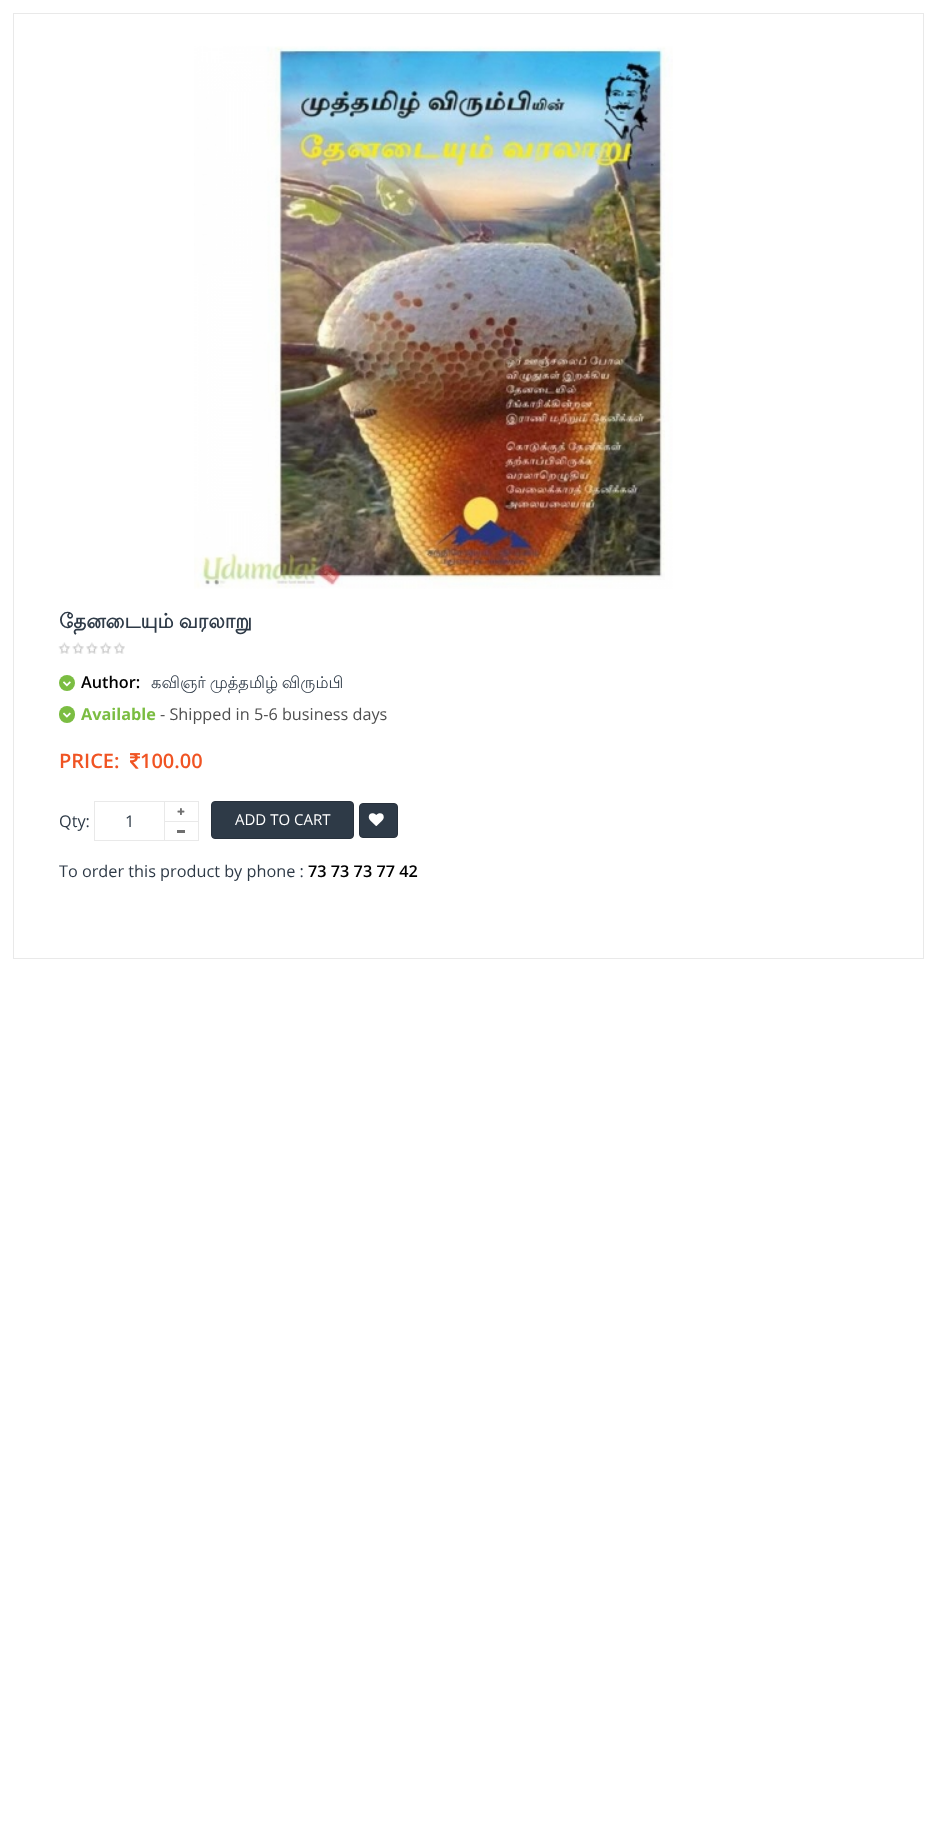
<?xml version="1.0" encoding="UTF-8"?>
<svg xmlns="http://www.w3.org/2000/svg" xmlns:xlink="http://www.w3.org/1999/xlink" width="936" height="1843">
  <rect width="100%" height="100%" fill="#ffffff" />
  <rect x="13.5" y="13.5" width="910" height="945" fill="none" stroke="#e9e9e9" />
  <image x="194" y="46" width="479" height="543" xlink:href="image1.png" />
  <image x="58" y="642" width="67" height="12" xlink:href="image2.png" />
  <circle cx="67" cy="683" r="8" fill="#7bbd42" />
  <image x="63" y="681" width="8" height="6" xlink:href="image3.png" />
  <rect x="59" y="706" width="16" height="17" rx="8" fill="#7bbd42" />
  <image x="63" y="712" width="8" height="6" xlink:href="image4.png" />
  <image x="130" y="753" width="11" height="16" xlink:href="image5.png" />
  <rect x="94.5" y="801.5" width="70" height="39" fill="none" stroke="#e9e9e9" />
  <rect x="165" y="801" width="34" height="1" fill="#e9e9e9" />
  <rect x="198" y="801" width="1" height="20" fill="#e9e9e9" />
  <image x="177" y="808" width="8" height="7" xlink:href="image6.png" />
  <rect x="165" y="821" width="34" height="1" fill="#e9e9e9" />
  <rect x="198" y="821" width="1" height="20" fill="#e9e9e9" />
  <rect x="165" y="840" width="34" height="1" fill="#e9e9e9" />
  <rect x="177" y="830" width="8" height="3" fill="#6f6f6f" />
  <rect x="211.5" y="801.5" width="142" height="37" rx="3.5" fill="#2e3a47" stroke="#28313c" />
  <rect x="359.5" y="803.5" width="38" height="34" rx="3.5" fill="#2e3a47" stroke="#28313c" />
  <image x="368" y="813" width="16" height="13" xlink:href="image7.png" />
  <text x="59" y="628" word-spacing="-1" style="font-family: Lohit Tamil; font-size: 20px; font-weight: bold; fill: #2e3a47">தேனடையும் வரலாறு</text>
  <text x="81" y="688" style="font-family: Open Sans; font-size: 16.25px; font-weight: 600; fill: #000000">Author:</text>
  <text x="151" y="688" word-spacing="-1" style="font-family: Lohit Tamil; font-size: 16.25px; fill: #2e3a47">கவிஞர் முத்தமிழ் விரும்பி</text>
  <text x="81" y="720" style="font-family: Open Sans; font-size: 16.25px; font-weight: bold; fill: #7bbd42">Available</text>
  <text x="160" y="720" style="font-family: Open Sans; font-size: 16.25px; fill: #4f4f4f">- Shipped in 5-6 business days</text>
  <text x="59" y="768" style="font-family: Open Sans; font-size: 20px; font-weight: 600; fill: #f05423">PRICE:</text>
  <text x="140" y="768" style="font-family: Open Sans; font-size: 20px; font-weight: 600; fill: #f05423">100.00</text>
  <text x="59" y="827" style="font-family: Open Sans; font-size: 16.25px; fill: #2e3a47">Qty:</text>
  <text x="125" y="827" style="font-family: Open Sans; font-size: 16.25px; fill: #2e3a47">1</text>
  <text x="235" y="825" style="font-family: Open Sans; font-size: 15px; fill: #ffffff">ADD TO CART</text>
  <text x="59" y="877" style="font-family: Open Sans; font-size: 16.25px; fill: #2e3a47">To order this product by phone :</text>
  <text x="308" y="877" style="font-family: Open Sans; font-size: 16.25px; font-weight: 600; fill: #000000">73 73 73 77 42</text>
</svg>
